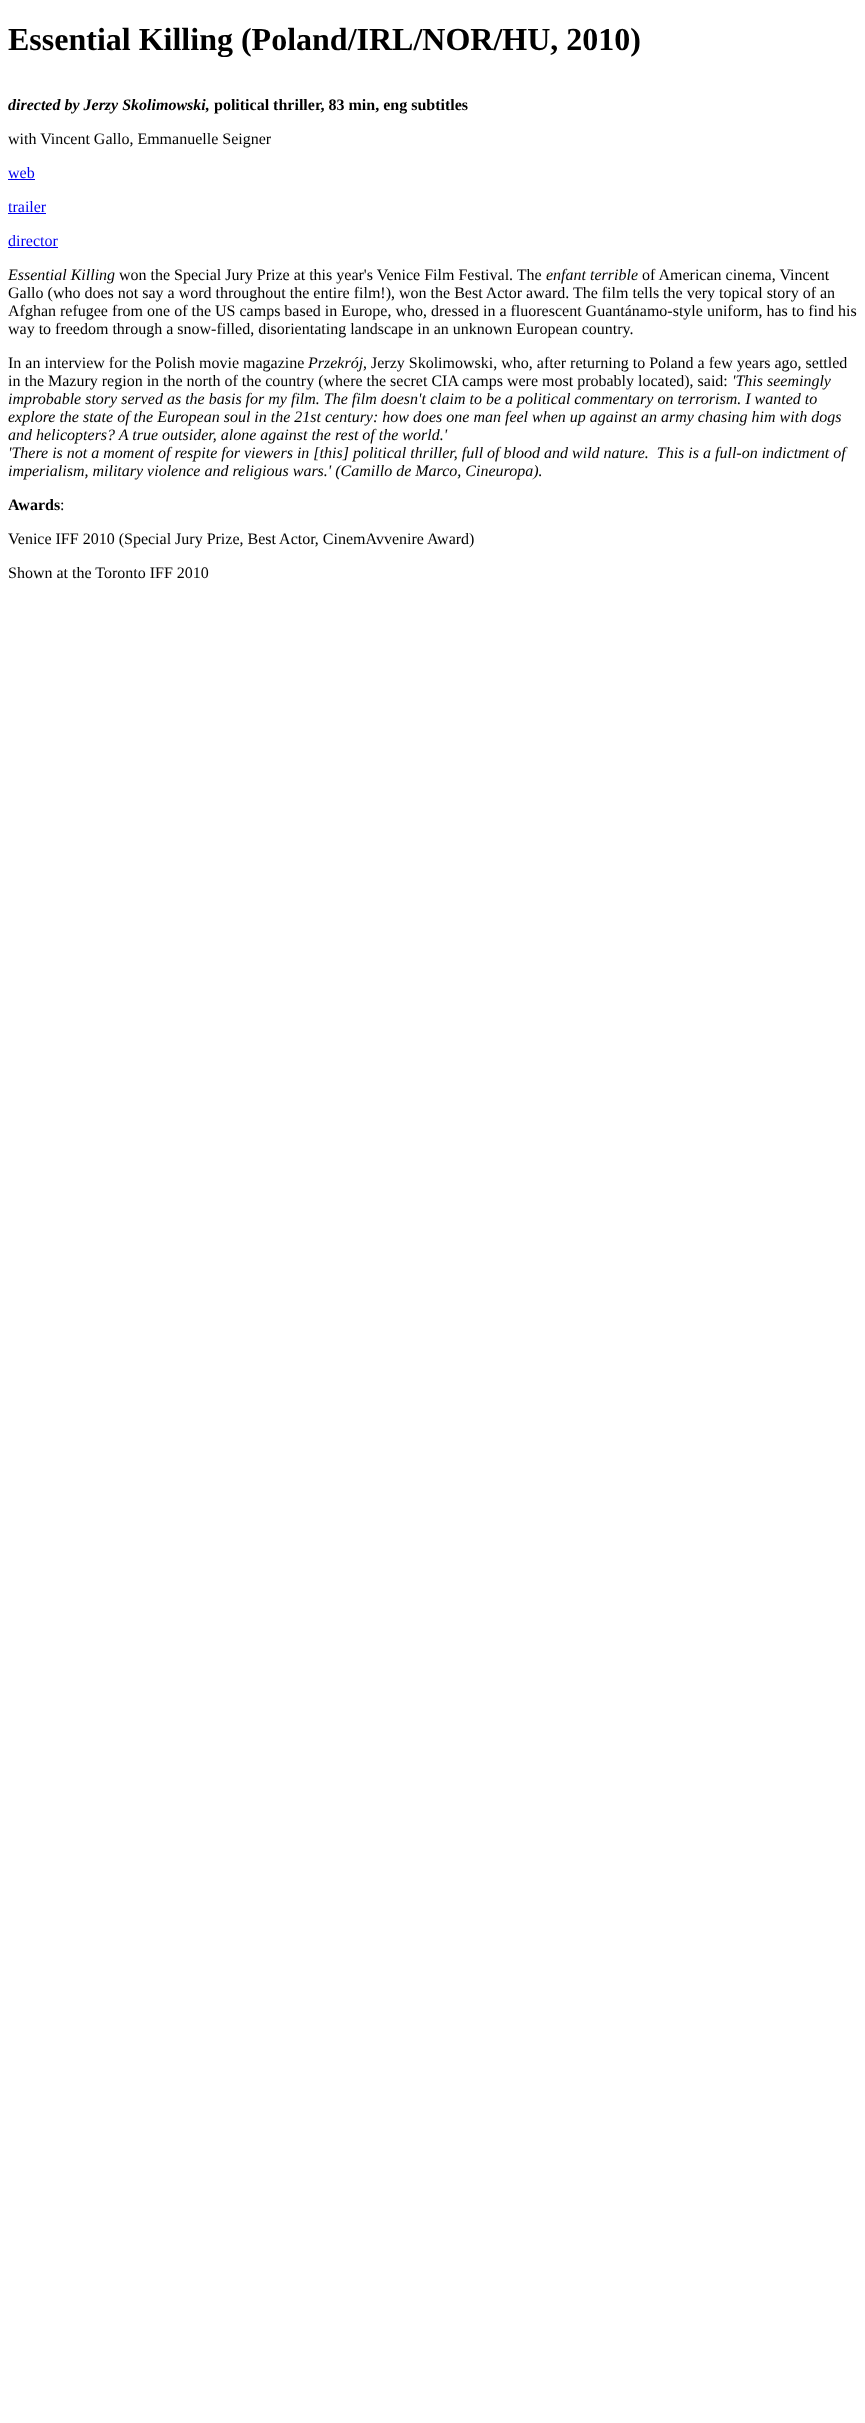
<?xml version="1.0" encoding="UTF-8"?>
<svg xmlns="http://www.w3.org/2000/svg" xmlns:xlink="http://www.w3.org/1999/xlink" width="865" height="2423">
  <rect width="100%" height="100%" fill="#ffffff" />
  <rect x="8" y="179" width="27" height="1" fill="#0000ee" />
  <rect x="8" y="213" width="38" height="1" fill="#0000ee" />
  <rect x="8" y="247" width="50" height="1" fill="#0000ee" />
  <text x="8" y="50" style="font-family: Liberation Serif; font-size: 32px; font-weight: bold; fill: #000000">Essential Killing (Poland/IRL/NOR/HU, 2010)</text>
  <text x="8" y="110" style="font-family: Liberation Serif; font-size: 16px; font-weight: bold; font-style: italic; fill: #000000">directed by Jerzy Skolimowski,</text>
  <text x="214" y="110" style="font-family: Liberation Serif; font-size: 16px; font-weight: bold; fill: #000000">political thriller, 83 min, eng subtitles</text>
  <text x="8" y="144" style="font-family: Liberation Serif; font-size: 16px; fill: #000000">with Vincent Gallo, Emmanuelle Seigner</text>
  <text x="8" y="178" style="font-family: Liberation Serif; font-size: 16px; fill: #0000ee">web</text>
  <text x="8" y="212" style="font-family: Liberation Serif; font-size: 16px; fill: #0000ee">trailer</text>
  <text x="8" y="246" style="font-family: Liberation Serif; font-size: 16px; fill: #0000ee">director</text>
  <text x="8" y="280" style="font-family: Liberation Serif; font-size: 16px; font-style: italic; fill: #000000">Essential Killing</text>
  <text x="119" y="280" style="font-family: Liberation Serif; font-size: 16px; fill: #000000">won the Special Jury Prize at this year's Venice Film Festival. The</text>
  <text x="546" y="280" style="font-family: Liberation Serif; font-size: 16px; font-style: italic; fill: #000000">enfant terrible</text>
  <text x="642" y="280" style="font-family: Liberation Serif; font-size: 16px; fill: #000000">of American cinema, Vincent</text>
  <text x="8" y="298" style="font-family: Liberation Serif; font-size: 16px; fill: #000000">Gallo (who does not say a word throughout the entire film!), won the Best Actor award. The film tells the very topical story of an</text>
  <text x="8" y="316" style="font-family: Liberation Serif; font-size: 16px; fill: #000000">Afghan refugee from one of the US camps based in Europe, who, dressed in a fluorescent Guantánamo-style uniform, has to find his</text>
  <text x="8" y="334" style="font-family: Liberation Serif; font-size: 16px; fill: #000000">way to freedom through a snow-filled, disorientating landscape in an unknown European country.</text>
  <text x="8" y="368" style="font-family: Liberation Serif; font-size: 16px; fill: #000000">In an interview for the Polish movie magazine</text>
  <text x="308" y="368" style="font-family: Liberation Serif; font-size: 16px; font-style: italic; fill: #000000">Przekrój</text>
  <text x="363" y="368" style="font-family: Liberation Serif; font-size: 16px; fill: #000000">, Jerzy Skolimowski, who, after returning to Poland a few years ago, settled</text>
  <text x="8" y="386" style="font-family: Liberation Serif; font-size: 16px; fill: #000000">in the Mazury region in the north of the country (where the secret CIA camps were most probably located), said:</text>
  <text x="732" y="386" style="font-family: Liberation Serif; font-size: 16px; font-style: italic; fill: #000000">'This seemingly</text>
  <text x="8" y="404" style="font-family: Liberation Serif; font-size: 16px; font-style: italic; fill: #000000">improbable story served as the basis for my film. The film doesn't claim to be a political commentary on terrorism. I wanted to</text>
  <text x="8" y="422" style="font-family: Liberation Serif; font-size: 16px; font-style: italic; fill: #000000">explore the state of the European soul in the 21st century: how does one man feel when up against an army chasing him with dogs</text>
  <text x="8" y="440" style="font-family: Liberation Serif; font-size: 16px; font-style: italic; fill: #000000">and helicopters? A true outsider, alone against the rest of the world.'</text>
  <text x="8" y="458" style="font-family: Liberation Serif; font-size: 16px; font-style: italic; fill: #000000" xml:space="preserve">'There is not a moment of respite for viewers in [this] political thriller, full of blood and wild nature.  This is a full-on indictment of</text>
  <text x="8" y="476" style="font-family: Liberation Serif; font-size: 16px; font-style: italic; fill: #000000">imperialism, military violence and religious wars.' (Camillo de Marco, Cineuropa).</text>
  <text x="8" y="510" style="font-family: Liberation Serif; font-size: 16px; font-weight: bold; fill: #000000">Awards</text>
  <text x="60" y="510" style="font-family: Liberation Serif; font-size: 16px; fill: #000000">:</text>
  <text x="8" y="544" style="font-family: Liberation Serif; font-size: 16px; fill: #000000">Venice IFF 2010 (Special Jury Prize, Best Actor, CinemAvvenire Award)</text>
  <text x="8" y="578" style="font-family: Liberation Serif; font-size: 16px; fill: #000000">Shown at the Toronto IFF 2010</text>
</svg>
